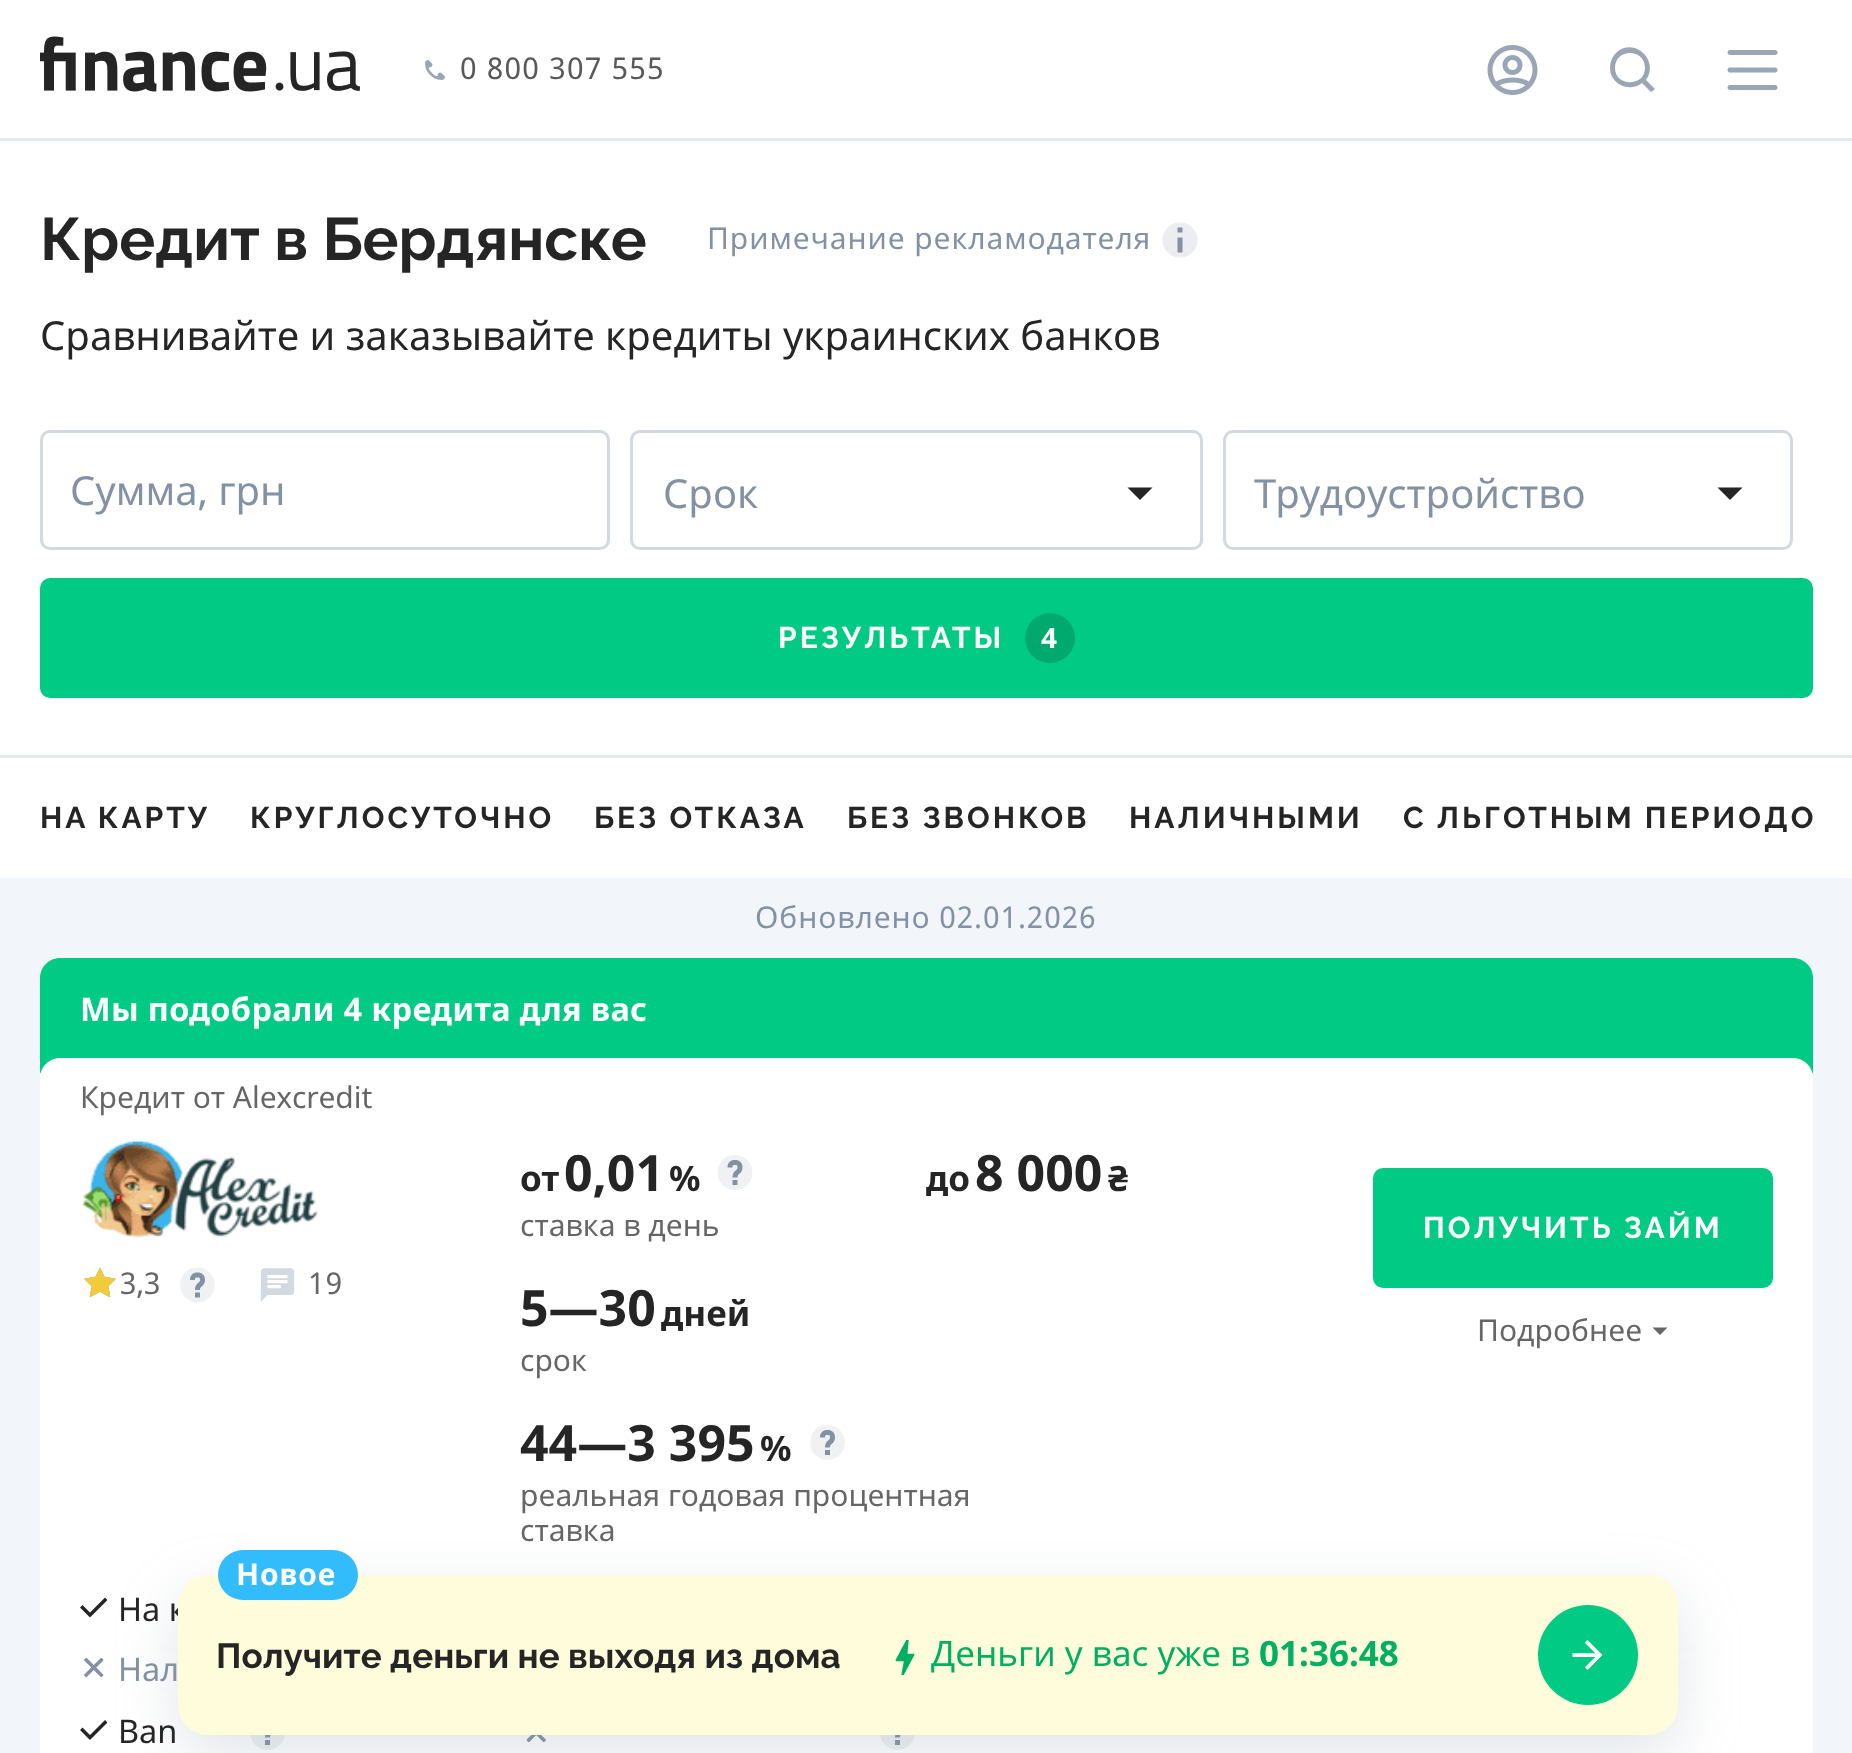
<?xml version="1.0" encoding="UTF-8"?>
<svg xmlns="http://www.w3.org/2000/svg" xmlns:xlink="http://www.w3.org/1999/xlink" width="1852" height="1753">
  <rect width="100%" height="100%" fill="#f2f6fa" />
  <rect width="1852" height="138" fill="#ffffff" />
  <rect y="138" width="1852" height="3" fill="#e5eaef" />
  <image x="40" y="36" width="320" height="56" xlink:href="image1.png" />
  <image x="425" y="60" width="20" height="20" xlink:href="image2.png" />
  <image x="1487" y="45" width="51" height="50" xlink:href="image3.png" />
  <path d="M 1610 68 c 0 -6 2 -11 6 -15 c 18 -17 44 8 30 27 l 9 9 l -4 3 l -9 -9 c -13 10 -32 1 -32 -15 z m 5 0 c 0 -20 30 -20 30 0 c 0 19 -30 19 -30 0 z" fill="#98a6b5" fill-rule="evenodd" />
  <image x="1727" y="50" width="51" height="40" xlink:href="image4.png" />
  <rect y="141" width="1852" height="737" fill="#ffffff" />
  <rect y="755" width="1852" height="3" fill="#e5eaef" />
  <image x="1162" y="222" width="36" height="36" xlink:href="image5.png" />
  <rect x="41.5" y="431.5" width="567" height="117" rx="8.5" fill="none" stroke="#d2d9e0" stroke-width="3" />
  <rect x="631.5" y="431.5" width="570" height="117" rx="8.5" fill="none" stroke="#d2d9e0" stroke-width="3" />
  <path d="M 1127.5 487.5 h 25 l -12.5 12.5 z" fill="#252525" />
  <rect x="1224.5" y="431.5" width="567" height="117" rx="8.5" fill="none" stroke="#d2d9e0" stroke-width="3" />
  <path d="M 1717.5 487.5 h 25 l -12.5 12.5 z" fill="#252525" />
  <rect x="40" y="578" width="1773" height="120" rx="10" fill="#00ca83" />
  <circle cx="1050" cy="638" r="25" fill="#00aa6e" />
  <path d="M 60 958 h 1733 c 11 0 20 9 20 20 v 95 h -1773 v -95 c 0 -11 9 -20 20 -20 z" fill="#00ca83" />
  <path d="M 60 1058 h 1733 c 11 0 20 9 20 20 v 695 h -1773 v -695 c 0 -11 9 -20 20 -20 z" fill="#ffffff" />
  <image x="81" y="1140" width="238" height="98" xlink:href="image6.png" />
  <image x="84" y="1268" width="32" height="29" xlink:href="image7.png" />
  <image x="84" y="1268" width="32" height="30" xlink:href="image8.png" />
  <image x="180" y="1267" width="35" height="36" xlink:href="image9.png" />
  <image x="260" y="1268" width="35" height="34" xlink:href="image10.png" />
  <image x="717" y="1155" width="36" height="35" xlink:href="image11.png" />
  <image x="810" y="1425" width="35" height="35" xlink:href="image12.png" />
  <rect x="1373" y="1168" width="400" height="120" rx="10" fill="#00ca83" />
  <path d="M 1652.5 1327.5 h 15 l -7.5 7.5 z" fill="#666666" />
  <image x="80" y="1597" width="28" height="21" xlink:href="image13.png" />
  <image x="84" y="1657" width="20" height="21" xlink:href="image14.png" />
  <image x="80" y="1720" width="28" height="20" xlink:href="image15.png" />
  <image x="250" y="1735" width="35" height="15" xlink:href="image16.png" />
  <image x="526" y="1735" width="20" height="8" xlink:href="image17.png" />
  <image x="880" y="1735" width="35" height="15" xlink:href="image18.png" />
  <rect x="178" y="1595" width="1500" height="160" rx="30" fill="#8292a4" fill-opacity="0.24" filter="blur(30px)" />
  <text x="460" y="79" style="font-family: Noto Sans; font-size: 30px; letter-spacing: 1.25px; fill: #595959">0 800 307 555</text>
  <text x="40" y="260" style="font-family: Raleway; font-size: 60px; font-weight: bold; fill: #252525">Кредит в Бердянске</text>
  <text x="707" y="249" style="font-family: Noto Sans; font-size: 30px; letter-spacing: 0.9px; fill: #8292a4">Примечание рекламодателя</text>
  <text x="40" y="350" style="font-family: Noto Sans; font-size: 40px; fill: #252525">Сравнивайте и заказывайте кредиты украинских банков</text>
  <text x="70" y="505" style="font-family: Noto Sans; font-size: 40px; fill: #8292a4">Сумма, грн</text>
  <text x="663" y="508" style="font-family: Noto Sans; font-size: 40px; fill: #8292a4">Срок</text>
  <text x="1254" y="508" style="font-family: Noto Sans; font-size: 40px; fill: #8292a4">Трудоустройство</text>
  <text x="778" y="648" style="font-family: Raleway; font-size: 30px; font-weight: bold; letter-spacing: 3px; fill: #ffffff">РЕЗУЛЬТАТЫ</text>
  <text x="1041" y="648" style="font-family: Noto Sans; font-size: 28px; font-weight: bold; letter-spacing: 3px; fill: #ffffff">4</text>
  <text x="40" y="828" style="font-family: Raleway; font-size: 30px; font-weight: bold; letter-spacing: 3px; fill: #252525">НА КАРТУ</text>
  <text x="250" y="828" style="font-family: Raleway; font-size: 30px; font-weight: bold; letter-spacing: 3px; fill: #252525">КРУГЛОСУТОЧНО</text>
  <text x="594" y="828" style="font-family: Raleway; font-size: 30px; font-weight: bold; letter-spacing: 3px; fill: #252525">БЕЗ ОТКАЗА</text>
  <text x="847" y="828" style="font-family: Raleway; font-size: 30px; font-weight: bold; letter-spacing: 3px; fill: #252525">БЕЗ ЗВОНКОВ</text>
  <text x="1129" y="828" style="font-family: Raleway; font-size: 30px; font-weight: bold; letter-spacing: 3px; fill: #252525">НАЛИЧНЫМИ</text>
  <text x="1403" y="828" style="font-family: Raleway; font-size: 30px; font-weight: bold; letter-spacing: 3px; fill: #252525">С ЛЬГОТНЫМ ПЕРИОДО</text>
  <text x="755" y="928" style="font-family: Noto Sans; font-size: 30px; letter-spacing: 0.9px; fill: #8292a4">Обновлено 02.01.2026</text>
  <text x="80" y="1021" style="font-family: Noto Sans; font-size: 32.5px; font-weight: bold; letter-spacing: 0.3px; fill: #ffffff">Мы подобрали 4 кредита для вас</text>
  <text x="80" y="1108" style="font-family: Noto Sans; font-size: 30px; fill: #666666">Кредит от Alexcredit</text>
  <text x="120" y="1294" style="font-family: Noto Sans; font-size: 30px; fill: #666666">3,3</text>
  <text x="308" y="1294" style="font-family: Noto Sans; font-size: 30px; letter-spacing: 0.9px; fill: #666666">19</text>
  <text x="520" y="1191" style="font-family: Noto Sans; font-size: 35px; font-weight: bold; fill: #252525">от</text>
  <text x="564" y="1191" style="font-family: Noto Sans; font-size: 50px; font-weight: bold; fill: #252525">0,01</text>
  <text x="669" y="1191" style="font-family: Noto Sans; font-size: 35px; font-weight: bold; fill: #252525">%</text>
  <text x="520" y="1236" style="font-family: Noto Sans; font-size: 30px; fill: #666666">ставка в день</text>
  <text x="926" y="1191" style="font-family: Noto Sans; font-size: 35px; font-weight: bold; fill: #252525">до</text>
  <text x="975" y="1191" style="font-family: Noto Sans; font-size: 50px; font-weight: bold; fill: #252525">8 000</text>
  <text x="1108" y="1191" style="font-family: Noto Sans; font-size: 35px; font-weight: bold; fill: #252525">₴</text>
  <text x="520" y="1326" style="font-family: Noto Sans; font-size: 50px; font-weight: bold; fill: #252525">5—30</text>
  <text x="661" y="1326" style="font-family: Noto Sans; font-size: 35px; font-weight: bold; fill: #252525">дней</text>
  <text x="520" y="1371" style="font-family: Noto Sans; font-size: 30px; fill: #666666">срок</text>
  <text x="520" y="1461" style="font-family: Noto Sans; font-size: 50px; font-weight: bold; fill: #252525">44—3 395</text>
  <text x="760" y="1461" style="font-family: Noto Sans; font-size: 35px; font-weight: bold; fill: #252525">%</text>
  <text x="520" y="1506" style="font-family: Noto Sans; font-size: 30px; fill: #666666">реальная годовая процентная</text>
  <text x="520" y="1541" style="font-family: Noto Sans; font-size: 30px; fill: #666666">ставка</text>
  <text x="1423" y="1238" style="font-family: Raleway; font-size: 30px; font-weight: bold; letter-spacing: 3px; fill: #ffffff">ПОЛУЧИТЬ ЗАЙМ</text>
  <text x="1477" y="1341" style="font-family: Noto Sans; font-size: 30px; fill: #666666">Подробнее</text>
  <text x="118" y="1621" style="font-family: Noto Sans; font-size: 32.5px; fill: #252525">На к</text>
  <text x="118" y="1681" style="font-family: Noto Sans; font-size: 32.5px; fill: #8292a4">Нал</text>
  <text x="118" y="1743" style="font-family: Noto Sans; font-size: 32.5px; fill: #252525">Ban</text>
  <rect x="178" y="1575" width="1500" height="160" rx="30" fill="#fffcdb" />
  <rect x="218" y="1550" width="140" height="50" rx="25" fill="#33bcfb" />
  <text x="236" y="1585" style="font-family: Noto Sans; font-size: 30px; font-weight: bold; letter-spacing: 0.9px; fill: #ffffff">Новое</text>
  <text x="216" y="1668" style="font-family: Raleway; font-size: 35px; font-weight: bold; fill: #252525">Получите деньги не выходя из дома</text>
  <image x="895" y="1640" width="20" height="35" xlink:href="image19.png" />
  <text x="931" y="1666" style="font-family: Noto Sans; font-size: 35px; fill: #00b062">Деньги у вас уже в</text>
  <text x="1259" y="1666" style="font-family: Noto Sans; font-size: 35px; font-weight: bold; fill: #00b062">01:36:48</text>
  <circle cx="1588" cy="1655" r="50" fill="#00ca83" />
  <image x="1572" y="1640" width="31" height="30" xlink:href="image20.png" />
</svg>
